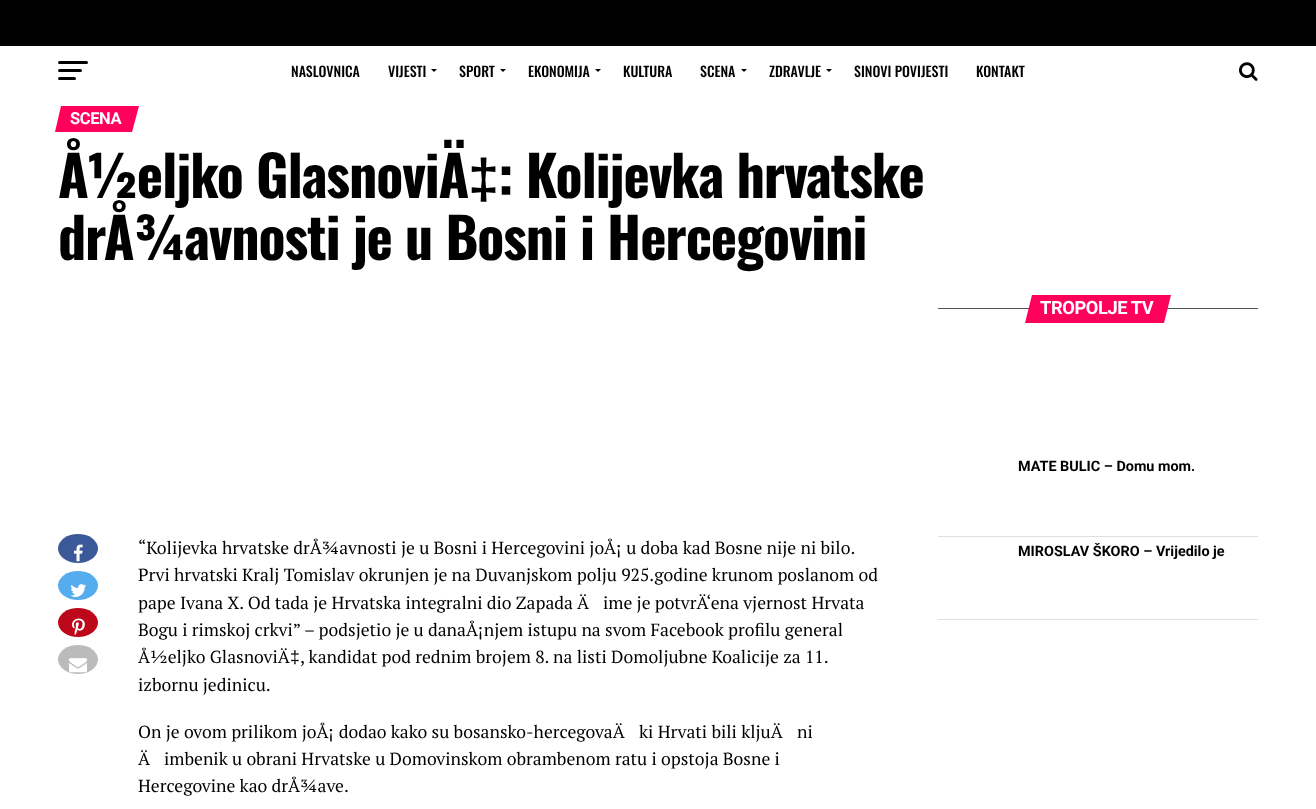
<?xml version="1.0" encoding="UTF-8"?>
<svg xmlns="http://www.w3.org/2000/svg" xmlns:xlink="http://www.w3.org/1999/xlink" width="1316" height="809">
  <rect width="100%" height="100%" fill="#ffffff" />
  <rect width="1316" height="46" fill="#000000" />
  <rect x="58" y="61" width="30" height="3" rx="1.5" fill="#000000" />
  <rect x="58" y="69" width="24" height="3" rx="1.5" fill="#000000" />
  <rect x="58" y="77" width="18" height="3" rx="1.5" fill="#000000" />
  <path d="M 431 69 h 6 l -3 3 z" fill="#000000" />
  <path d="M 500 69 h 6 l -3 3 z" fill="#000000" />
  <path d="M 595 69 h 6 l -3 3 z" fill="#000000" />
  <path d="M 741 69 h 6 l -3 3 z" fill="#000000" />
  <path d="M 826 69 h 6 l -3 3 z" fill="#000000" />
  <image x="1239" y="62" width="19" height="19" xlink:href="image1.png" />
  <path d="M 61 106 h 78 l -7 26 h -77 z" fill="#ff005b" />
  <rect x="938" y="308" width="320" height="1" fill="#555555" />
  <path d="M 1032 295 h 139 l -7 28 h -139 z" fill="#ff005b" />
  <rect x="938" y="536" width="320" height="1" fill="#dfdfdd" />
  <rect x="938" y="619" width="320" height="1" fill="#dfdfdd" />
  <ellipse cx="78" cy="548.5" rx="20" ry="14.5" fill="#3b5998" />
  <image x="73" y="544" width="10" height="18" xlink:href="image2.png" />
  <ellipse cx="78" cy="585.5" rx="20" ry="14.5" fill="#55acee" />
  <image x="70" y="584" width="17" height="13" xlink:href="image3.png" />
  <ellipse cx="78" cy="622.5" rx="20" ry="14.5" fill="#bd081c" />
  <image x="72" y="618" width="13" height="18" xlink:href="image4.png" />
  <ellipse cx="78" cy="659.5" rx="20" ry="14.5" fill="#bbbbbb" />
  <image x="69" y="658" width="18" height="15" xlink:href="image5.png" />
  <text x="291" y="77" style="font-family: Oswald; font-size: 14px; font-weight: 500; fill: #000000">NASLOVNICA</text>
  <text x="388" y="77" style="font-family: Oswald; font-size: 14px; font-weight: 500; fill: #000000">VIJESTI</text>
  <text x="459" y="77" style="font-family: Oswald; font-size: 14px; font-weight: 500; fill: #000000">SPORT</text>
  <text x="528" y="77" style="font-family: Oswald; font-size: 14px; font-weight: 500; fill: #000000">EKONOMIJA</text>
  <text x="623" y="77" style="font-family: Oswald; font-size: 14px; font-weight: 500; fill: #000000">KULTURA</text>
  <text x="700" y="77" style="font-family: Oswald; font-size: 14px; font-weight: 500; fill: #000000">SCENA</text>
  <text x="769" y="77" style="font-family: Oswald; font-size: 14px; font-weight: 500; fill: #000000">ZDRAVLJE</text>
  <text x="854" y="77" style="font-family: Oswald; font-size: 14px; font-weight: 500; fill: #000000">SINOVI POVIJESTI</text>
  <text x="976" y="77" style="font-family: Oswald; font-size: 14px; font-weight: 500; fill: #000000">KONTAKT</text>
  <text x="70" y="124" style="font-family: Roboto; font-size: 16.5px; font-weight: bold; letter-spacing: -0.4px; fill: #ffffff">SCENA</text>
  <text x="58" y="198" style="font-family: Oswald; font-size: 56px; font-weight: bold; letter-spacing: -1.1px; fill: #000000">Å½eljko GlasnoviÄ</text>
  <text x="468" y="198" style="font-family: Liberation Sans; font-size: 56px; font-weight: bold; letter-spacing: -1.1px; fill: #000000">‡</text>
  <text x="498" y="198" style="font-family: Oswald; font-size: 56px; font-weight: bold; letter-spacing: -1.1px; fill: #000000">: Kolijevka hrvatske</text>
  <text x="58" y="260" style="font-family: Oswald; font-size: 56px; font-weight: bold; letter-spacing: -1.1px; fill: #000000">drÅ¾avnosti je u Bosni i Hercegovini</text>
  <text x="1040" y="314" style="font-family: Roboto; font-size: 18.25px; font-weight: bold; letter-spacing: -0.4px; fill: #ffffff">TROPOLJE TV</text>
  <text x="1018" y="471" style="font-family: Roboto; font-size: 14.4px; font-weight: bold; fill: #000000">MATE BULIC – Domu mom.</text>
  <text x="1018" y="556" style="font-family: Roboto; font-size: 14.4px; font-weight: bold; fill: #000000">MIROSLAV ŠKORO – Vrijedilo je</text>
  <text x="138" y="554" style="font-family: PT Serif; font-size: 17.6px; fill: #000000">“Kolijevka hrvatske drÅ¾avnosti je u Bosni i Hercegovini joÅ¡ u doba kad Bosne nije ni bilo.</text>
  <text x="138" y="581" style="font-family: PT Serif; font-size: 17.6px; fill: #000000">Prvi hrvatski Kralj Tomislav okrunjen je na Duvanjskom polju 925.godine krunom poslanom od</text>
  <text x="138" y="609" style="font-family: PT Serif; font-size: 17.6px; fill: #000000">pape Ivana X. Od tada je Hrvatska integralni dio Zapada Ä</text>
  <text x="603" y="609" style="font-family: PT Serif; font-size: 17.6px; fill: #000000">ime je potvrÄ‘ena vjernost Hrvata</text>
  <text x="138" y="636" style="font-family: PT Serif; font-size: 17.6px; fill: #000000">Bogu i rimskoj crkvi” – podsjetio je u danaÅ¡njem istupu na svom Facebook profilu general</text>
  <text x="138" y="663" style="font-family: PT Serif; font-size: 17.6px; fill: #000000">Å½eljko GlasnoviÄ</text>
  <text x="290" y="663" style="font-family: Liberation Sans; font-size: 17.6px; fill: #000000">‡</text>
  <text x="300" y="663" style="font-family: PT Serif; font-size: 17.6px; fill: #000000">, kandidat pod rednim brojem 8. na listi Domoljubne Koalicije za 11.</text>
  <text x="138" y="691" style="font-family: PT Serif; font-size: 17.6px; fill: #000000">izbornu jedinicu.</text>
  <text x="138" y="738" style="font-family: PT Serif; font-size: 17.6px; fill: #000000">On je ovom prilikom joÅ¡ dodao kako su bosansko-hercegovaÄ</text>
  <text x="639" y="738" style="font-family: PT Serif; font-size: 17.6px; fill: #000000">ki Hrvati bili kljuÄ</text>
  <text x="797" y="738" style="font-family: PT Serif; font-size: 17.6px; fill: #000000">ni</text>
  <text x="138" y="765" style="font-family: PT Serif; font-size: 17.6px; fill: #000000">Ä</text>
  <text x="164" y="765" style="font-family: PT Serif; font-size: 17.6px; fill: #000000">imbenik u obrani Hrvatske u Domovinskom obrambenom ratu i opstoja Bosne i</text>
  <text x="138" y="792" style="font-family: PT Serif; font-size: 17.6px; fill: #000000">Hercegovine kao drÅ¾ave.</text>
</svg>
